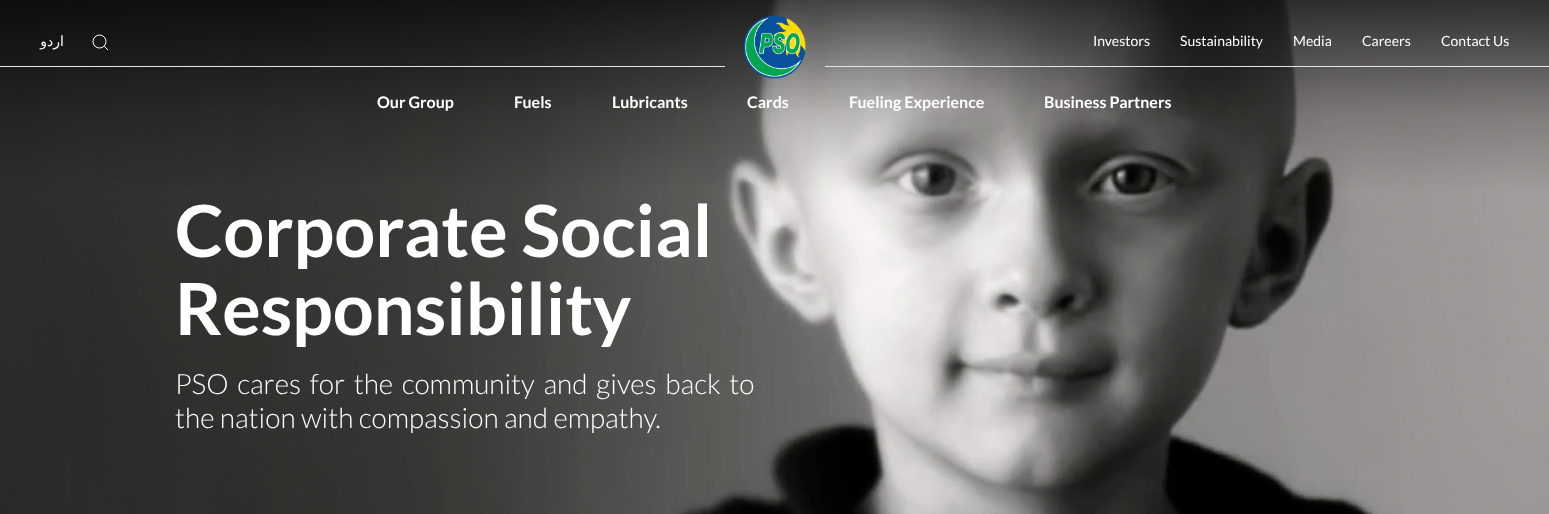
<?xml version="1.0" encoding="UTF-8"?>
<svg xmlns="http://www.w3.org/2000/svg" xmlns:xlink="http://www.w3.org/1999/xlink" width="1549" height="514">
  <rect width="100%" height="100%" fill="#ffffff" />
  <image x="0" y="0" width="1549" height="514" xlink:href="image2.png" />
  <circle cx="99.5" cy="41.5" r="6.5" fill="none" stroke="#ffffff" />
  <path d="M 104.5 46.5 l 3.5 3.5 z" fill="none" stroke="#ffffff" />
  <image x="743" y="15" width="63" height="64" xlink:href="image1.png" />
  <rect y="66" width="725" height="1" fill="#e4e4e4" />
  <rect x="825" y="66" width="724" height="1" fill="#e4e4e4" />
  <text x="64" y="46" style="font-family: DejaVu Sans; font-size: 14px; direction: rtl; fill: #ffffff">اردو</text>
  <text x="1093" y="46" style="font-family: Lato; font-size: 14px; fill: #ffffff">Investors</text>
  <text x="1180" y="46" style="font-family: Lato; font-size: 14px; fill: #ffffff">Sustainability</text>
  <text x="1293" y="46" style="font-family: Lato; font-size: 14px; fill: #ffffff">Media</text>
  <text x="1362" y="46" style="font-family: Lato; font-size: 14px; fill: #ffffff">Careers</text>
  <text x="1441" y="46" style="font-family: Lato; font-size: 14px; fill: #ffffff">Contact Us</text>
  <text x="377" y="108" style="font-family: Lato; font-size: 16px; font-weight: bold; fill: #ffffff">Our Group</text>
  <text x="514" y="108" style="font-family: Lato; font-size: 16px; font-weight: bold; fill: #ffffff">Fuels</text>
  <text x="612" y="108" style="font-family: Lato; font-size: 16px; font-weight: bold; fill: #ffffff">Lubricants</text>
  <text x="747" y="108" style="font-family: Lato; font-size: 16px; font-weight: bold; fill: #ffffff">Cards</text>
  <text x="849" y="108" style="font-family: Lato; font-size: 16px; font-weight: bold; fill: #ffffff">Fueling Experience</text>
  <text x="1044" y="108" style="font-family: Lato; font-size: 16px; font-weight: bold; fill: #ffffff">Business Partners</text>
  <text x="175" y="257" style="font-family: Lato; font-size: 72px; font-weight: bold; fill: #ffffff">Corporate Social</text>
  <text x="175" y="335" style="font-family: Lato; font-size: 72px; font-weight: bold; fill: #ffffff">Responsibility</text>
  <text x="175" y="394" word-spacing="3.25" style="font-family: Lato; font-size: 28px; font-weight: 300; fill: #ffffff">PSO cares for the community and gives back to</text>
  <text x="175" y="428" style="font-family: Lato; font-size: 28px; font-weight: 300; fill: #ffffff">the nation with compassion and empathy.</text>
</svg>
